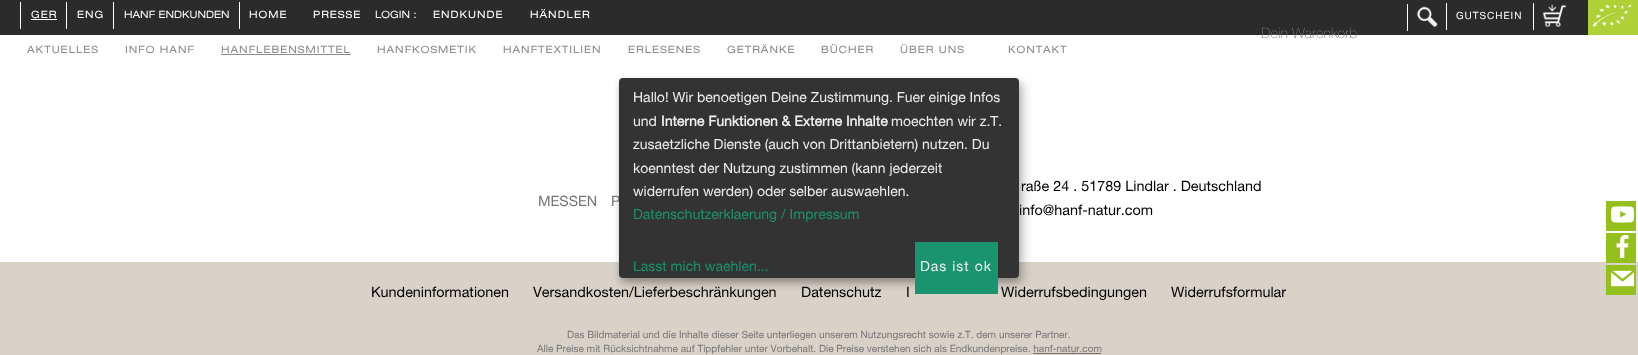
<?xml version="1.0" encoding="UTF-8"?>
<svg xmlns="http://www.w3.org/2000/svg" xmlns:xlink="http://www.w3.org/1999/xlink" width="1638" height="355">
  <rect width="100%" height="100%" fill="#ffffff" />
  <rect width="1588" height="35" fill="#2c2b2b" />
  <rect x="20" y="2" width="1" height="27" fill="#ffffff" />
  <rect x="31" y="19" width="26" height="1" fill="#ffffff" />
  <rect x="66" y="2" width="1" height="27" fill="#ffffff" />
  <rect x="113" y="2" width="1" height="27" fill="#ffffff" />
  <rect x="239" y="2" width="1" height="27" fill="#ffffff" />
  <rect x="1407" y="4" width="1" height="27" fill="#ffffff" />
  <image x="1417" y="6" width="21" height="21" xlink:href="image1.png" />
  <rect x="1446" y="3" width="1" height="27" fill="#ffffff" />
  <rect x="1533" y="3" width="1" height="27" fill="#ffffff" />
  <image x="1542" y="4" width="25" height="23" xlink:href="image2.png" />
  <image x="1588" y="0" width="50" height="35" xlink:href="image3.png" />
  <rect x="221" y="54" width="130" height="1" fill="#8c8c8c" />
  <rect x="1606" y="201" width="30" height="30" fill="#94c01b" />
  <image x="1611" y="206" width="24" height="17" xlink:href="image4.png" />
  <rect y="262" width="1638" height="93" fill="#d8d2c9" />
  <rect x="1606" y="233" width="30" height="30" fill="#94c01b" />
  <image x="1616" y="235" width="13" height="23" xlink:href="image5.png" />
  <rect x="1606" y="265" width="30" height="30" fill="#94c01b" />
  <image x="1611" y="270" width="24" height="17" xlink:href="image6.png" />
  <rect x="1033" y="353" width="68" height="1" fill="#767676" />
  <rect x="624" y="83" width="400" height="200" rx="4" fill="#000000" fill-opacity="0.19" filter="blur(5px)" />
  <rect x="619" y="82" width="400" height="200" rx="4" fill="#000000" fill-opacity="0.2" filter="blur(3px)" />
  <text x="31" y="18" style="font-family: Helvetica Neue; font-size: 10px; letter-spacing: 1px; fill: #ffffff">GER</text>
  <text x="77" y="18" style="font-family: Helvetica Neue; font-size: 10px; letter-spacing: 1px; fill: #ffffff">ENG</text>
  <text x="124" y="18" style="font-family: Helvetica Neue; font-size: 10px; fill: #f5f5f5">HANF ENDKUNDEN</text>
  <text x="249" y="18" style="font-family: Helvetica Neue; font-size: 10px; letter-spacing: 1px; fill: #ffffff">HOME</text>
  <text x="313" y="18" style="font-family: Helvetica Neue; font-size: 10px; letter-spacing: 1px; fill: #ffffff">PRESSE</text>
  <text x="375" y="18" style="font-family: Helvetica Neue; font-size: 10px; fill: #f5f5f5">LOGIN :</text>
  <text x="433" y="18" style="font-family: Helvetica Neue; font-size: 10px; letter-spacing: 1px; fill: #ffffff">ENDKUNDE</text>
  <text x="530" y="18" style="font-family: Helvetica Neue; font-size: 10px; letter-spacing: 1px; fill: #ffffff">HÄNDLER</text>
  <text x="1456" y="19" style="font-family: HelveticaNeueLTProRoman; font-size: 10px; letter-spacing: 1px; fill: #ffffff">GUTSCHEIN</text>
  <text x="27" y="53" style="font-family: Helvetica Neue; font-size: 10px; letter-spacing: 1px; fill: #8c8c8c">AKTUELLES</text>
  <text x="125" y="53" style="font-family: Helvetica Neue; font-size: 10px; letter-spacing: 1px; fill: #8c8c8c">INFO HANF</text>
  <text x="221" y="53" style="font-family: Helvetica Neue; font-size: 10px; letter-spacing: 1px; fill: #8c8c8c">HANFLEBENSMITTEL</text>
  <text x="377" y="53" style="font-family: Helvetica Neue; font-size: 10px; letter-spacing: 1px; fill: #8c8c8c">HANFKOSMETIK</text>
  <text x="503" y="53" style="font-family: Helvetica Neue; font-size: 10px; letter-spacing: 1px; fill: #8c8c8c">HANFTEXTILIEN</text>
  <text x="628" y="53" style="font-family: Helvetica Neue; font-size: 10px; letter-spacing: 1px; fill: #8c8c8c">ERLESENES</text>
  <text x="727" y="53" style="font-family: Helvetica Neue; font-size: 10px; letter-spacing: 1px; fill: #8c8c8c">GETRÄNKE</text>
  <text x="821" y="53" style="font-family: Helvetica Neue; font-size: 10px; letter-spacing: 1px; fill: #8c8c8c">BÜCHER</text>
  <text x="900" y="53" style="font-family: Helvetica Neue; font-size: 10px; letter-spacing: 1px; fill: #8c8c8c">ÜBER UNS</text>
  <text x="1008" y="53" style="font-family: Helvetica Neue; font-size: 10px; letter-spacing: 1px; fill: #8c8c8c">KONTAKT</text>
  <text x="538" y="206" style="font-family: HelveticaNeueLTProRoman; font-size: 14.4px; fill: #767676">MESSEN</text>
  <text x="611" y="206" style="font-family: HelveticaNeueLTProRoman; font-size: 14.4px; fill: #767676">P</text>
  <text x="1021" y="191" style="font-family: HelveticaNeueLTProRoman; font-size: 14.4px; fill: #000000">raße 24 . 51789 Lindlar . Deutschland</text>
  <text x="1019" y="215" style="font-family: HelveticaNeueLTProRoman; font-size: 14.4px; fill: #000000">info@hanf-natur.com</text>
  <text x="371" y="297" style="font-family: HelveticaNeueLTProRoman; font-size: 14.4px; fill: #000000">Kundeninformationen</text>
  <text x="533" y="297" style="font-family: HelveticaNeueLTProRoman; font-size: 14.4px; fill: #000000">Versandkosten/Lieferbeschränkungen</text>
  <text x="801" y="297" style="font-family: HelveticaNeueLTProRoman; font-size: 14.4px; fill: #000000">Datenschutz</text>
  <text x="906" y="297" style="font-family: HelveticaNeueLTProRoman; font-size: 14.4px; fill: #000000">I</text>
  <text x="1001" y="297" style="font-family: HelveticaNeueLTProRoman; font-size: 14.4px; fill: #000000">Widerrufsbedingungen</text>
  <text x="1171" y="297" style="font-family: HelveticaNeueLTProRoman; font-size: 14.4px; fill: #000000">Widerrufsformular</text>
  <text x="567" y="338" style="font-family: HelveticaNeueLTProRoman; font-size: 10px; fill: #767676">Das Bildmaterial und die Inhalte dieser Seite unterliegen unserem Nutzungsrecht sowie z.T. dem unserer Partner.</text>
  <text x="537" y="352" style="font-family: HelveticaNeueLTProRoman; font-size: 10px; fill: #767676">Alle Preise mit Rücksichtnahme auf Tippfehler unter Vorbehalt. Die Preise verstehen sich als Endkundenpreise. hanf-natur.com</text>
  <text x="1261" y="38" style="font-family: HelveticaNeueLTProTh; font-size: 14.4px; fill: #767676">Dein Warenkorb</text>
  <rect x="619" y="78" width="400" height="200" rx="4" fill="#333333" />
  <text x="633" y="102" style="font-family: HelveticaNeueLTProRoman; font-size: 14px; fill: #eeeeee">Hallo! Wir benoetigen Deine Zustimmung. Fuer einige Infos</text>
  <text x="633" y="126" style="font-family: HelveticaNeueLTProRoman; font-size: 14px; fill: #eeeeee">und</text>
  <text x="661" y="126" style="font-family: HelveticaNeueLTProRoman; font-size: 14px; font-weight: bold; fill: #eeeeee">Interne Funktionen &amp; Externe Inhalte</text>
  <text x="891" y="126" style="font-family: HelveticaNeueLTProRoman; font-size: 14px; fill: #eeeeee">moechten wir z.T.</text>
  <text x="633" y="149" style="font-family: HelveticaNeueLTProRoman; font-size: 14px; fill: #eeeeee">zusaetzliche Dienste (auch von Drittanbietern) nutzen. Du</text>
  <text x="633" y="173" style="font-family: HelveticaNeueLTProRoman; font-size: 14px; fill: #eeeeee">koenntest der Nutzung zustimmen (kann jederzeit</text>
  <text x="633" y="196" style="font-family: HelveticaNeueLTProRoman; font-size: 14px; fill: #eeeeee">widerrufen werden) oder selber auswaehlen.</text>
  <text x="633" y="219" style="font-family: HelveticaNeueLTProRoman; font-size: 14px; fill: #1a936f">Datenschutzerklaerung / Impressum</text>
  <text x="633" y="271" style="font-family: HelveticaNeueLTProRoman; font-size: 14px; fill: #1a936f">Lasst mich waehlen...</text>
  <rect x="915" y="242" width="83" height="52" fill="#1a936f" />
  <text x="920" y="271" style="font-family: HelveticaNeueLTProRoman; font-size: 14px; letter-spacing: 1px; fill: #eeeeee">Das ist ok</text>
</svg>
